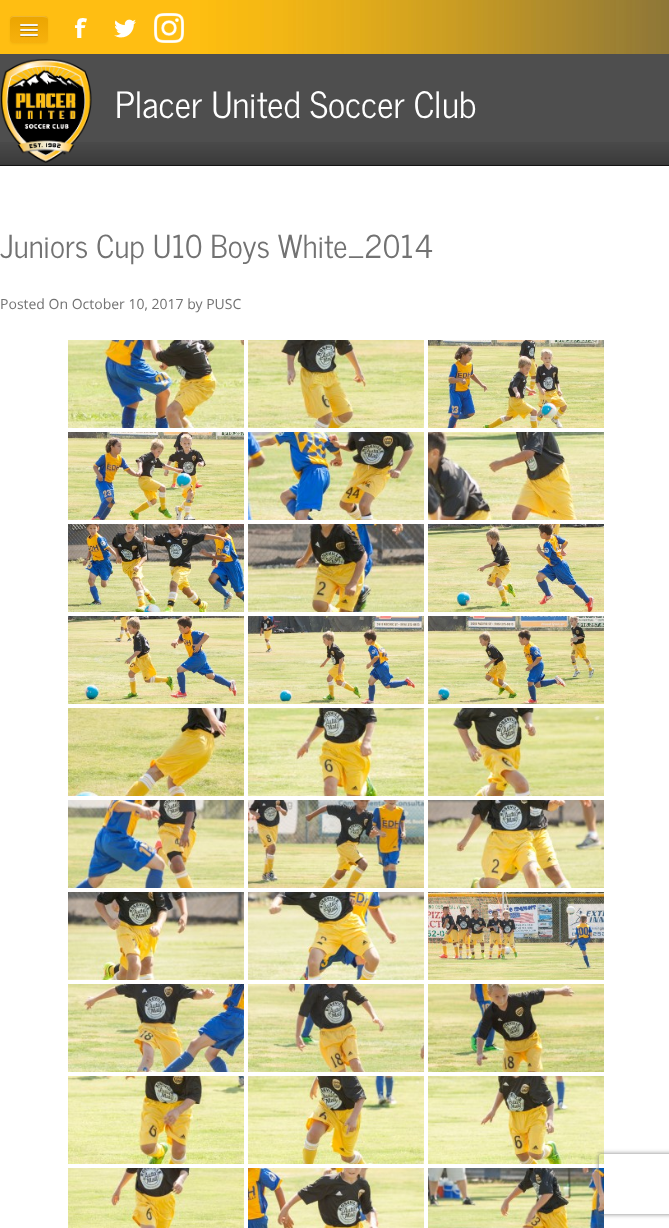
<?xml version="1.0" encoding="UTF-8"?>
<svg xmlns="http://www.w3.org/2000/svg" xmlns:xlink="http://www.w3.org/1999/xlink" width="669" height="1228">
  <defs>
    <linearGradient id="g1" gradientUnits="userSpaceOnUse" x1="29" y1="16" x2="29" y2="43"><stop offset="0" stop-color="#eba500" /><stop offset="1" stop-color="#f7b10d" /></linearGradient>
    <clipPath id="clip1"><path d="M 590 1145 h 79 v 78 h -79 z m 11 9 h 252 c 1 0 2 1 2 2 v 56 c 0 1 -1 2 -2 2 h -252 c -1 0 -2 -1 -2 -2 v -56 c 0 -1 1 -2 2 -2 z" clip-rule="evenodd" /></clipPath>
  </defs>
  <rect width="100%" height="100%" fill="#ffffff" />
  <rect y="54" width="669" height="88" fill="#4e4e4e" />
  <image x="0" y="0" width="669" height="54" xlink:href="image1.png" />
  <rect x="10" y="17" width="38" height="27" rx="4" fill="#000000" fill-opacity="0.05" filter="blur(1px)" />
  <rect x="10" y="16" width="38" height="27" rx="4" fill="url(#g1)" />
  <path d="M 14 17 h 25 c 6 0 8 0.5 9 2 c -0.5 -1.5 -2 -3 -4 -3 h -30 c -2 0 -4 2 -4 4 v 0.5 c 0.5 -2 1.5 -3.5 4 -3.5 z" fill="#ffffff" fill-opacity="0.2" />
  <path d="M 20 25.5 c -1 2 3.5 1.5 3.5 1.5 h 11 c 0 0 4.5 0.5 3.5 -1.5 c -1 1 -7.5 0.5 -9 0.5 c -1.5 0 -8 0.5 -9 -0.5 z" fill="#b48004" />
  <rect x="20" y="24" width="18" height="2" rx="1" fill="#f5f5f5" />
  <path d="M 20 30.5 c -1 2 3.5 1.5 3.5 1.5 h 11 c 0 0 4.5 0.5 3.5 -1.5 c -1 1 -7.5 0.5 -9 0.5 c -1.5 0 -8 0.5 -9 -0.5 z" fill="#b68105" />
  <rect x="20" y="29" width="18" height="2" rx="1" fill="#f5f5f5" />
  <path d="M 20 35.5 c -1 2 3.5 1.5 3.5 1.5 h 11 c 0 0 4.5 0.5 3.5 -1.5 c -1 1 -7.5 0.5 -9 0.5 c -1.5 0 -8 0.5 -9 -0.5 z" fill="#b78308" />
  <rect x="20" y="34" width="18" height="2" rx="1" fill="#f5f5f5" />
  <image x="75" y="18" width="12" height="20" xlink:href="image2.png" />
  <image x="114" y="19" width="22" height="19" xlink:href="image3.png" />
  <image x="154" y="13" width="30" height="30" xlink:href="image4.png" />
  <image x="0" y="142" width="669" height="24" xlink:href="image5.png" />
  <image x="0" y="59" width="92" height="104" xlink:href="image6.png" />
  <image x="68" y="340" width="176" height="88" xlink:href="image7.png" />
  <image x="248" y="340" width="176" height="88" xlink:href="image8.png" />
  <image x="428" y="340" width="176" height="88" xlink:href="image9.png" />
  <image x="68" y="432" width="176" height="88" xlink:href="image10.png" />
  <image x="248" y="432" width="176" height="88" xlink:href="image11.png" />
  <image x="428" y="432" width="176" height="88" xlink:href="image12.png" />
  <image x="68" y="524" width="176" height="88" xlink:href="image13.png" />
  <image x="248" y="524" width="176" height="88" xlink:href="image14.png" />
  <image x="428" y="524" width="176" height="88" xlink:href="image15.png" />
  <image x="68" y="616" width="176" height="88" xlink:href="image16.png" />
  <image x="248" y="616" width="176" height="88" xlink:href="image17.png" />
  <image x="428" y="616" width="176" height="88" xlink:href="image18.png" />
  <image x="68" y="708" width="176" height="88" xlink:href="image19.png" />
  <image x="248" y="708" width="176" height="88" xlink:href="image20.png" />
  <image x="428" y="708" width="176" height="88" xlink:href="image21.png" />
  <image x="68" y="800" width="176" height="88" xlink:href="image22.png" />
  <image x="248" y="800" width="176" height="88" xlink:href="image23.png" />
  <image x="428" y="800" width="176" height="88" xlink:href="image24.png" />
  <image x="68" y="892" width="176" height="88" xlink:href="image25.png" />
  <image x="248" y="892" width="176" height="88" xlink:href="image26.png" />
  <image x="428" y="892" width="176" height="88" xlink:href="image27.png" />
  <image x="68" y="984" width="176" height="88" xlink:href="image28.png" />
  <image x="248" y="984" width="176" height="88" xlink:href="image29.png" />
  <image x="428" y="984" width="176" height="88" xlink:href="image30.png" />
  <image x="68" y="1076" width="176" height="88" xlink:href="image31.png" />
  <image x="248" y="1076" width="176" height="88" xlink:href="image32.png" />
  <image x="428" y="1076" width="176" height="88" xlink:href="image33.png" />
  <image x="68" y="1168" width="176" height="60" xlink:href="image34.png" />
  <image x="248" y="1168" width="176" height="60" xlink:href="image35.png" />
  <image x="428" y="1168" width="176" height="60" xlink:href="image36.png" />
  <g clip-path="url(#clip1)">
    <rect x="599" y="1154" width="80" height="60" rx="2" fill="#808080" filter="blur(2.5px)" />
  </g>
  <text x="115" y="118" style="font-family: News Cycle; font-size: 36px; fill: #ffffff">Placer United Soccer Club</text>
  <text x="0" y="258" style="font-family: News Cycle; font-size: 31.5px; fill: #727272">Juniors Cup U10 Boys White_2014</text>
  <text x="0" y="309" style="font-family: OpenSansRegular; font-size: 14px; fill: #727272">Posted On October 10, 2017 by PUSC</text>
</svg>
